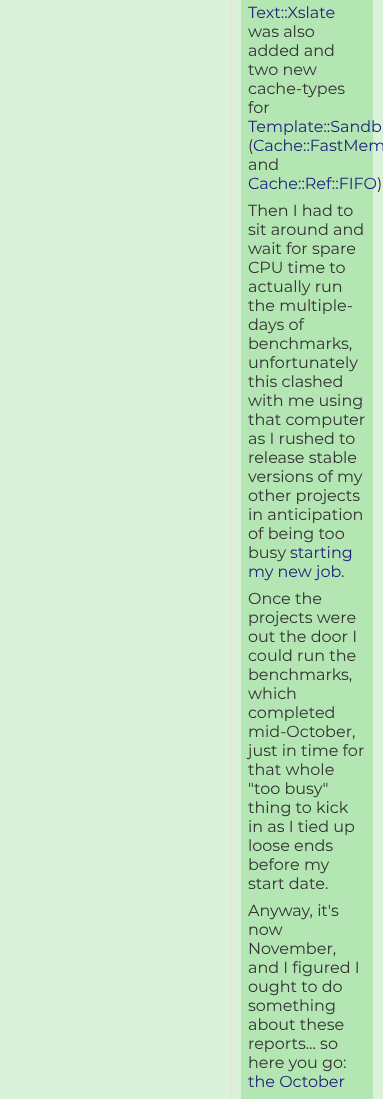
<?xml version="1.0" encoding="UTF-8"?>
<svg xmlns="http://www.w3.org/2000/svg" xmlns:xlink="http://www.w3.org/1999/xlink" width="383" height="1099">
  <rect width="100%" height="100%" fill="#d9f2d9" />
  <rect x="230" width="1" height="1099" fill="#dddddd" />
  <rect x="241" width="132" height="1099" fill="#b3e6b3" />
  <text x="248" y="18" style="font-family: Montserrat; font-size: 16px; fill: #1f1f7a">Text::Xslate</text>
  <text x="248" y="37" style="font-family: Montserrat; font-size: 16px; fill: #333333">was also</text>
  <text x="248" y="56" style="font-family: Montserrat; font-size: 16px; fill: #333333">added and</text>
  <text x="248" y="75" style="font-family: Montserrat; font-size: 16px; fill: #333333">two new</text>
  <text x="248" y="94" style="font-family: Montserrat; font-size: 16px; fill: #333333">cache-types</text>
  <text x="248" y="113" style="font-family: Montserrat; font-size: 16px; fill: #333333">for</text>
  <text x="248" y="132" style="font-family: Montserrat; font-size: 16px; fill: #1f1f7a">Template::Sandb</text>
  <text x="248" y="151" style="font-family: Montserrat; font-size: 16px; fill: #333333">(</text>
  <text x="253" y="151" style="font-family: Montserrat; font-size: 16px; fill: #1f1f7a">Cache::FastMem</text>
  <text x="248" y="170" style="font-family: Montserrat; font-size: 16px; fill: #333333">and</text>
  <text x="248" y="189" style="font-family: Montserrat; font-size: 16px; fill: #1f1f7a">Cache::Ref::FIFO</text>
  <text x="377" y="189" style="font-family: Montserrat; font-size: 16px; fill: #333333">)</text>
  <text x="248" y="216" style="font-family: Montserrat; font-size: 16px; fill: #333333">Then I had to</text>
  <text x="248" y="235" style="font-family: Montserrat; font-size: 16px; fill: #333333">sit around and</text>
  <text x="248" y="254" style="font-family: Montserrat; font-size: 16px; fill: #333333">wait for spare</text>
  <text x="248" y="273" style="font-family: Montserrat; font-size: 16px; fill: #333333">CPU time to</text>
  <text x="248" y="292" style="font-family: Montserrat; font-size: 16px; fill: #333333">actually run</text>
  <text x="248" y="311" style="font-family: Montserrat; font-size: 16px; fill: #333333">the multiple-</text>
  <text x="248" y="330" style="font-family: Montserrat; font-size: 16px; fill: #333333">days of</text>
  <text x="248" y="349" style="font-family: Montserrat; font-size: 16px; fill: #333333">benchmarks,</text>
  <text x="248" y="368" style="font-family: Montserrat; font-size: 16px; fill: #333333">unfortunately</text>
  <text x="248" y="387" style="font-family: Montserrat; font-size: 16px; fill: #333333">this clashed</text>
  <text x="248" y="406" style="font-family: Montserrat; font-size: 16px; fill: #333333">with me using</text>
  <text x="248" y="425" style="font-family: Montserrat; font-size: 16px; fill: #333333">that computer</text>
  <text x="248" y="444" style="font-family: Montserrat; font-size: 16px; fill: #333333">as I rushed to</text>
  <text x="248" y="463" style="font-family: Montserrat; font-size: 16px; fill: #333333">release stable</text>
  <text x="248" y="482" style="font-family: Montserrat; font-size: 16px; fill: #333333">versions of my</text>
  <text x="248" y="501" style="font-family: Montserrat; font-size: 16px; fill: #333333">other projects</text>
  <text x="248" y="520" style="font-family: Montserrat; font-size: 16px; fill: #333333">in anticipation</text>
  <text x="248" y="539" style="font-family: Montserrat; font-size: 16px; fill: #333333">of being too</text>
  <text x="248" y="558" style="font-family: Montserrat; font-size: 16px; fill: #333333">busy</text>
  <text x="290" y="558" style="font-family: Montserrat; font-size: 16px; fill: #1f1f7a">starting</text>
  <text x="248" y="577" style="font-family: Montserrat; font-size: 16px; fill: #1f1f7a">my new job</text>
  <text x="341" y="577" style="font-family: Montserrat; font-size: 16px; fill: #333333">.</text>
  <text x="248" y="604" style="font-family: Montserrat; font-size: 16px; fill: #333333">Once the</text>
  <text x="248" y="623" style="font-family: Montserrat; font-size: 16px; fill: #333333">projects were</text>
  <text x="248" y="642" style="font-family: Montserrat; font-size: 16px; fill: #333333">out the door I</text>
  <text x="248" y="661" style="font-family: Montserrat; font-size: 16px; fill: #333333">could run the</text>
  <text x="248" y="680" style="font-family: Montserrat; font-size: 16px; fill: #333333">benchmarks,</text>
  <text x="248" y="699" style="font-family: Montserrat; font-size: 16px; fill: #333333">which</text>
  <text x="248" y="718" style="font-family: Montserrat; font-size: 16px; fill: #333333">completed</text>
  <text x="248" y="737" style="font-family: Montserrat; font-size: 16px; fill: #333333">mid-October,</text>
  <text x="248" y="756" style="font-family: Montserrat; font-size: 16px; fill: #333333">just in time for</text>
  <text x="248" y="775" style="font-family: Montserrat; font-size: 16px; fill: #333333">that whole</text>
  <text x="248" y="794" style="font-family: Montserrat; font-size: 16px; fill: #333333">"too busy"</text>
  <text x="248" y="813" style="font-family: Montserrat; font-size: 16px; fill: #333333">thing to kick</text>
  <text x="248" y="832" style="font-family: Montserrat; font-size: 16px; fill: #333333">in as I tied up</text>
  <text x="248" y="851" style="font-family: Montserrat; font-size: 16px; fill: #333333">loose ends</text>
  <text x="248" y="870" style="font-family: Montserrat; font-size: 16px; fill: #333333">before my</text>
  <text x="248" y="889" style="font-family: Montserrat; font-size: 16px; fill: #333333">start date.</text>
  <text x="248" y="916" style="font-family: Montserrat; font-size: 16px; fill: #333333">Anyway, it's</text>
  <text x="248" y="935" style="font-family: Montserrat; font-size: 16px; fill: #333333">now</text>
  <text x="248" y="954" style="font-family: Montserrat; font-size: 16px; fill: #333333">November,</text>
  <text x="248" y="973" style="font-family: Montserrat; font-size: 16px; fill: #333333">and I figured I</text>
  <text x="248" y="992" style="font-family: Montserrat; font-size: 16px; fill: #333333">ought to do</text>
  <text x="248" y="1011" style="font-family: Montserrat; font-size: 16px; fill: #333333">something</text>
  <text x="248" y="1030" style="font-family: Montserrat; font-size: 16px; fill: #333333">about these</text>
  <text x="248" y="1049" style="font-family: Montserrat; font-size: 16px; fill: #333333">reports... so</text>
  <text x="248" y="1068" style="font-family: Montserrat; font-size: 16px; fill: #333333">here you go:</text>
  <text x="248" y="1087" style="font-family: Montserrat; font-size: 16px; fill: #1f1f7a">the October</text>
</svg>
